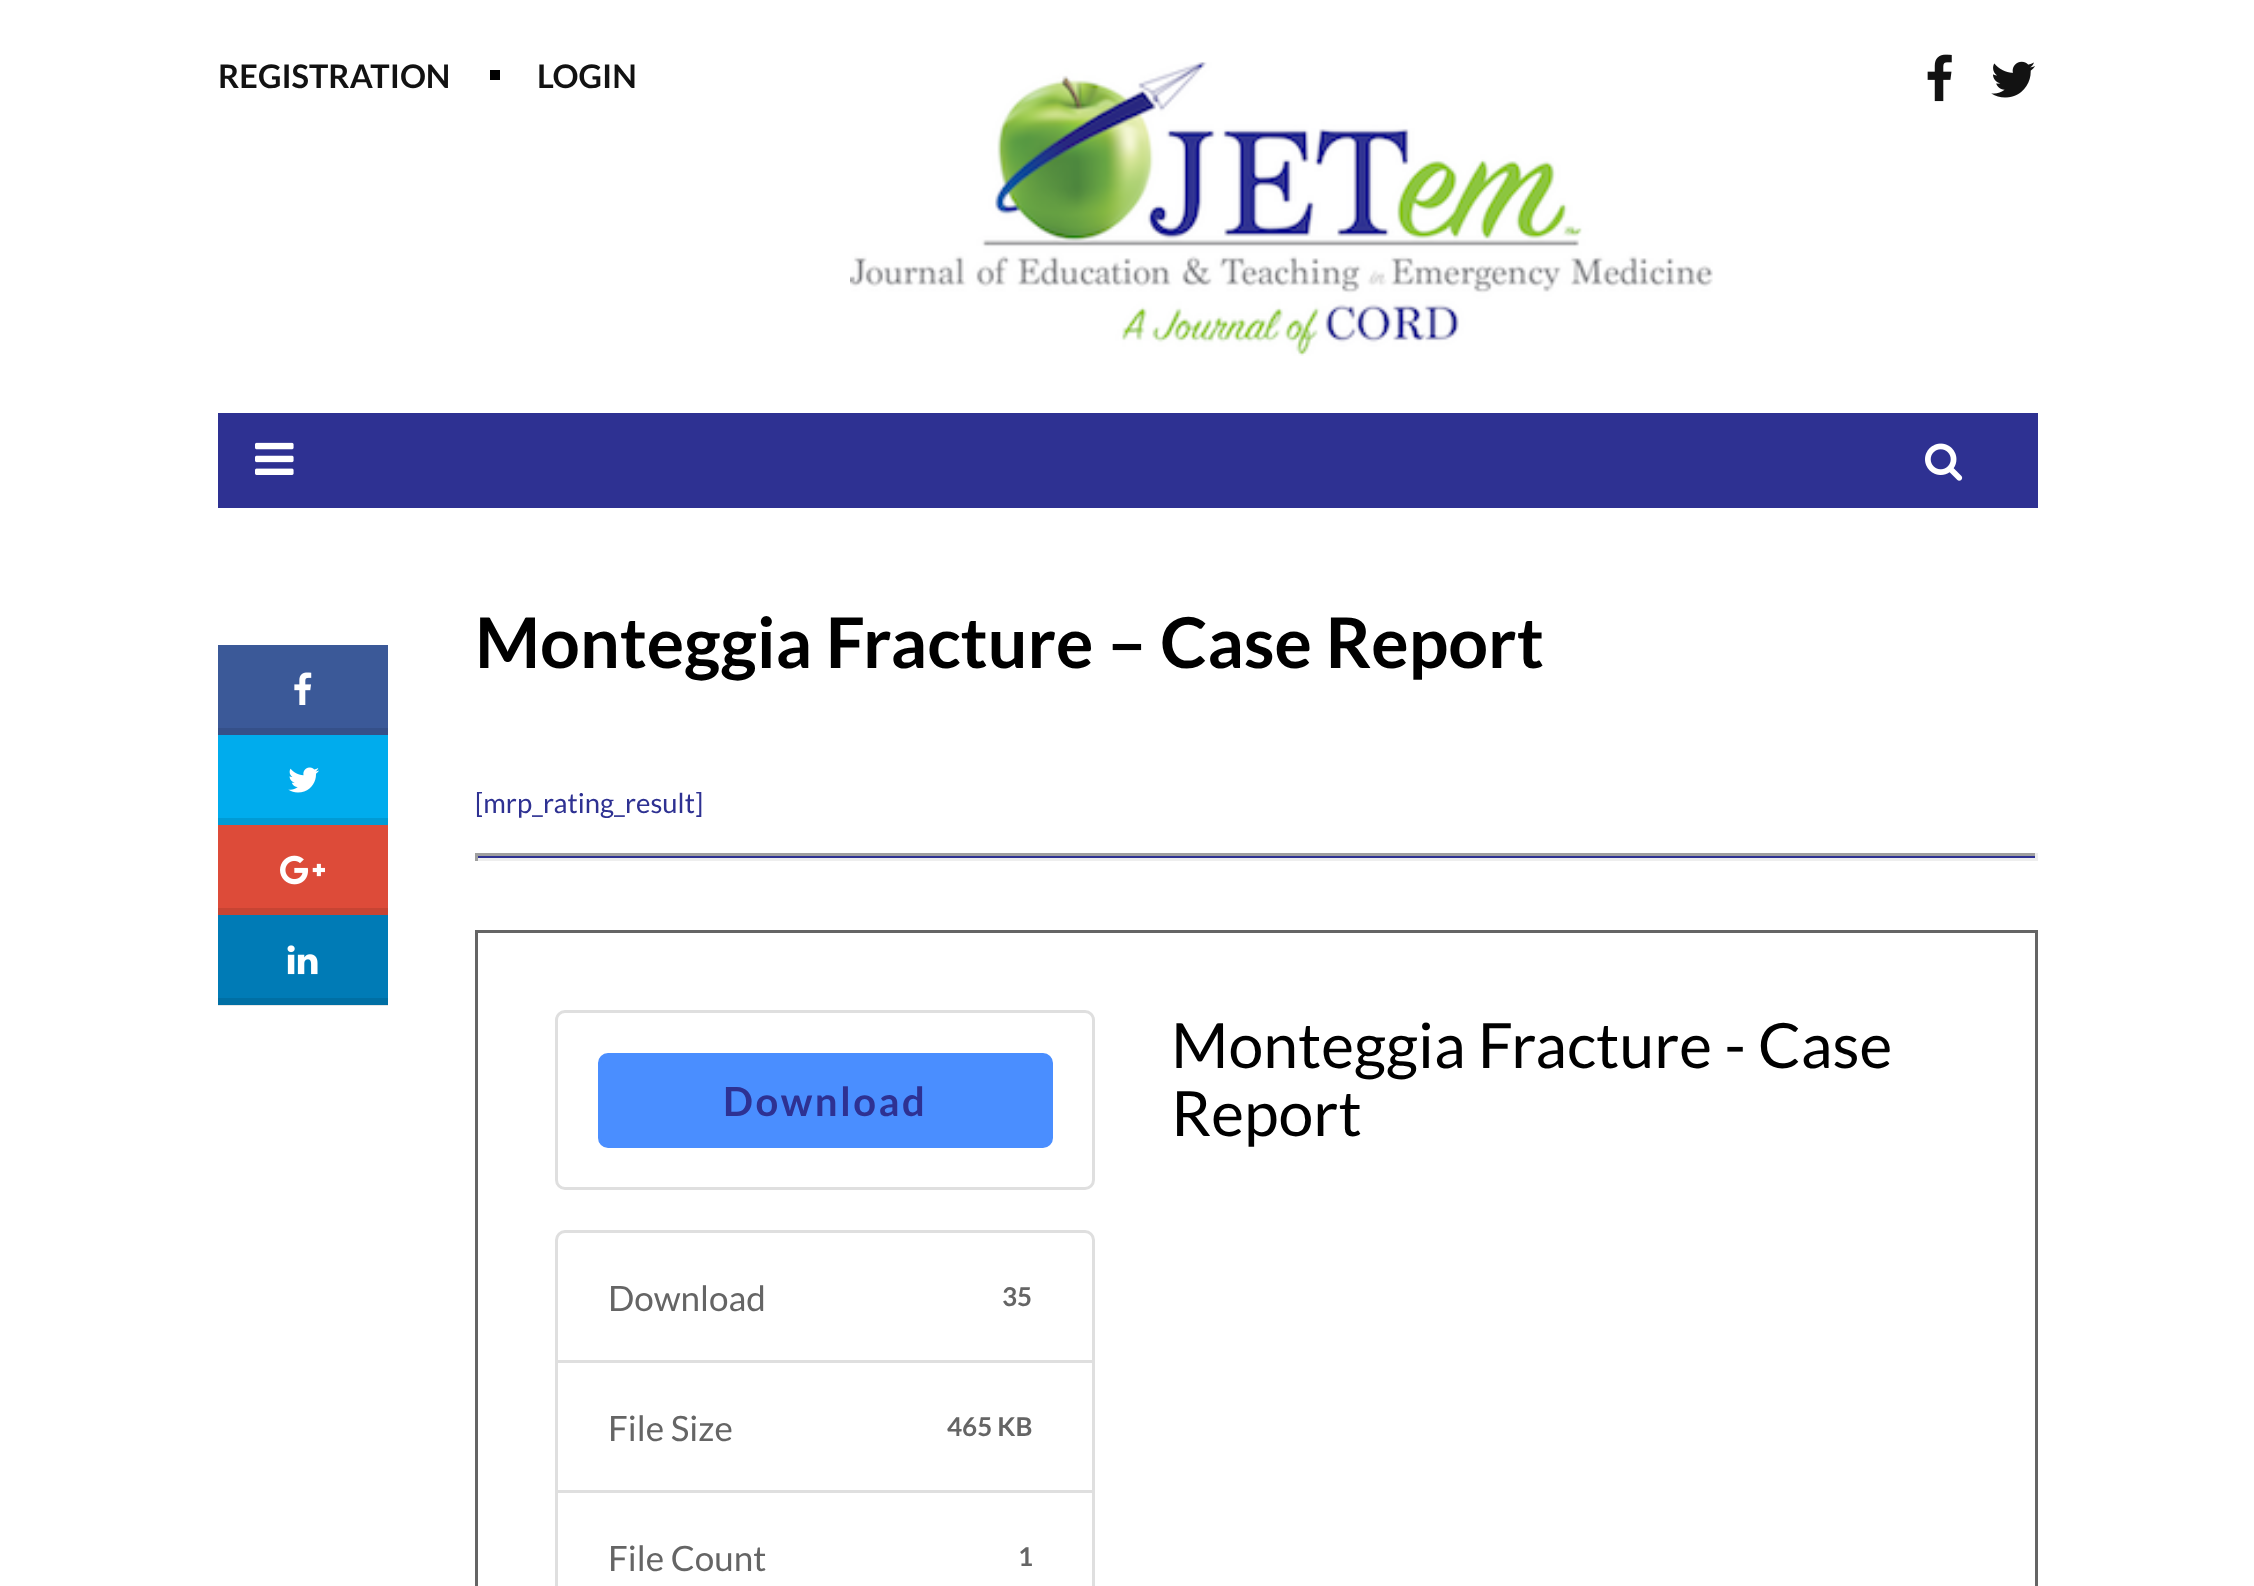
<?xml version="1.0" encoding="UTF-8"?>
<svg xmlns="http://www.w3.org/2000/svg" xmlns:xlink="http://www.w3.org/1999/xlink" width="2254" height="1586">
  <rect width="100%" height="100%" fill="#ffffff" />
  <rect x="218" y="1005" width="170" height="1" fill="#e6e6e6" />
  <rect x="490" y="70" width="10" height="10" fill="#000000" />
  <image x="1927" y="54" width="25" height="48" xlink:href="image1.png" />
  <image x="1991" y="61" width="44" height="37" xlink:href="image2.png" />
  <image x="850" y="62" width="863" height="294" xlink:href="image3.png" />
  <rect x="218" y="413" width="1820" height="95" fill="#2e3192" />
  <image x="255" y="442" width="39" height="33" xlink:href="image4.png" />
  <image x="1925" y="443" width="38" height="38" xlink:href="image5.png" />
  <rect x="218" y="645" width="170" height="83" fill="#3b5998" />
  <rect x="218" y="728" width="170" height="7" fill="#355089" />
  <image x="294" y="672" width="18" height="33" xlink:href="image6.png" />
  <rect x="218" y="735" width="170" height="83" fill="#00aced" />
  <rect x="218" y="818" width="170" height="7" fill="#009bd5" />
  <image x="288" y="767" width="31" height="26" xlink:href="image7.png" />
  <rect x="218" y="825" width="170" height="83" fill="#dd4b39" />
  <rect x="218" y="908" width="170" height="7" fill="#c74433" />
  <image x="280" y="855" width="45" height="30" xlink:href="image8.png" />
  <rect x="218" y="915" width="170" height="83" fill="#007bb6" />
  <rect x="218" y="998" width="170" height="7" fill="#006fa4" />
  <image x="287" y="945" width="31" height="30" xlink:href="image9.png" />
  <rect x="475" y="856" width="1563" height="2" fill="#2e3192" />
  <rect x="475" y="853" width="1563" height="3" fill="#9f9f9f" />
  <rect x="2035" y="853" width="3" height="8" fill="#eeeeee" />
  <rect x="475" y="858" width="1563" height="3" fill="#eeeeee" />
  <rect x="475" y="853" width="3" height="8" fill="#9f9f9f" />
  <rect x="476.5" y="931.5" width="1560" height="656" fill="none" stroke="#656565" stroke-width="3" />
  <rect x="556.5" y="1011.5" width="537" height="177" rx="8.5" fill="none" stroke="#dfdfdf" stroke-width="3" />
  <rect x="599.5" y="1054.5" width="452" height="92" rx="8.5" fill="#4a8eff" stroke="#4a8eff" stroke-width="3" />
  <path d="M 565 1231.5 h 520 c 4.5 0 8.5 4 8.5 8.5 v 121.5 h -537 v -121.5 c 0 -4.5 4 -8.5 8.5 -8.5 z" fill="none" stroke="#dfdfdf" stroke-width="3" />
  <rect x="556.5" y="1361.5" width="537" height="130" fill="none" stroke="#dfdfdf" stroke-width="3" />
  <rect x="556.5" y="1491.5" width="537" height="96" fill="none" stroke="#dfdfdf" stroke-width="3" />
  <text x="218" y="88" style="font-family: Lato; font-size: 32.5px; font-weight: bold; fill: #121212">REGISTRATION</text>
  <text x="537" y="88" style="font-family: Lato; font-size: 32.5px; font-weight: bold; fill: #121212">LOGIN</text>
  <text x="475" y="668" style="font-family: Lato; font-size: 70px; font-weight: bold; fill: #000000">Monteggia Fracture – Case Report</text>
  <text x="475" y="813" style="font-family: Lato; font-size: 27.5px; fill: #2e3192">[mrp_rating_result]</text>
  <text x="723" y="1116" style="font-family: Lato; font-size: 40px; font-weight: bold; letter-spacing: 2.5px; fill: #2e3192">Download</text>
  <text x="608" y="1311" style="font-family: Lato; font-size: 35px; fill: #656565">Download</text>
  <text x="1002" y="1306" style="font-family: Lato; font-size: 26px; font-weight: bold; fill: #656565">35</text>
  <text x="608" y="1441" style="font-family: Lato; font-size: 35px; fill: #656565">File Size</text>
  <text x="947" y="1436" style="font-family: Lato; font-size: 26px; font-weight: bold; fill: #656565">465 KB</text>
  <text x="608" y="1571" style="font-family: Lato; font-size: 35px; fill: #656565">File Count</text>
  <text x="1018" y="1566" style="font-family: Lato; font-size: 26px; font-weight: bold; fill: #656565">1</text>
  <text x="1171" y="1068" style="font-family: Lato; font-size: 62.5px; fill: #000000">Monteggia Fracture - Case</text>
  <text x="1171" y="1136" style="font-family: Lato; font-size: 62.5px; fill: #000000">Report</text>
</svg>
